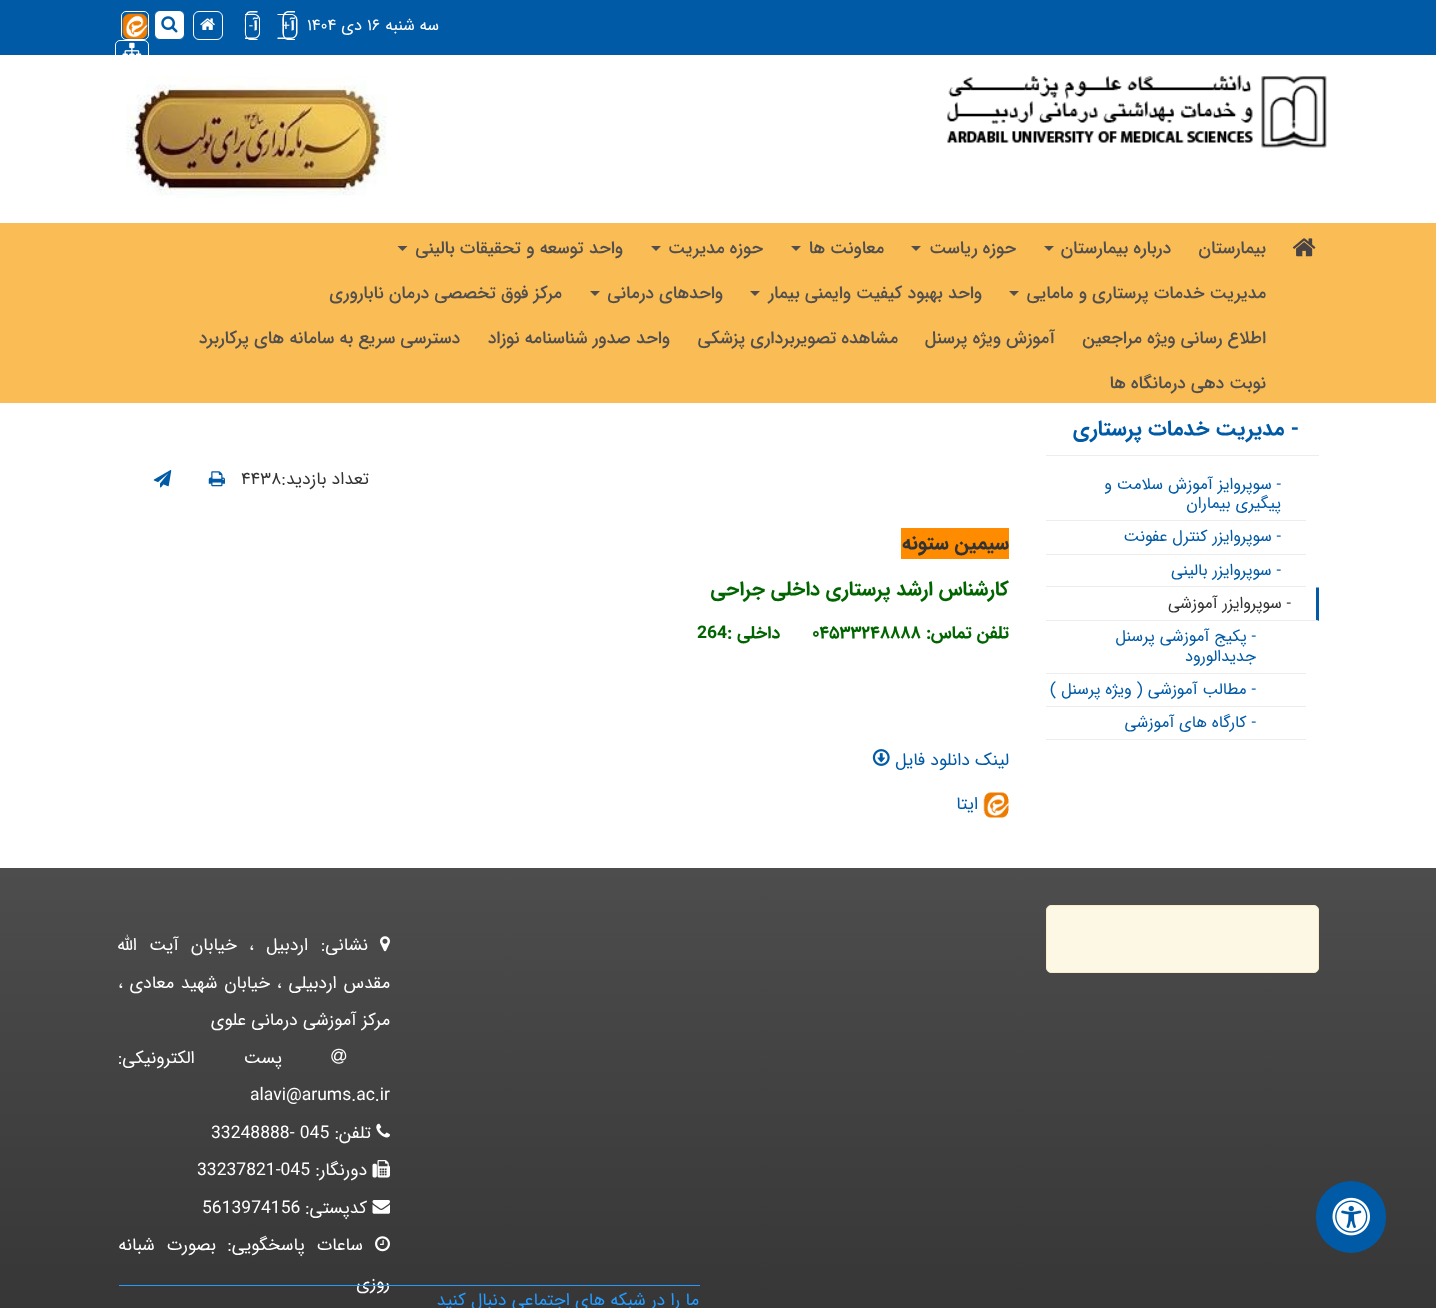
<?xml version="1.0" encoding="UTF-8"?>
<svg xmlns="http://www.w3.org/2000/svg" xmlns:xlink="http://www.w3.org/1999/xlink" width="1436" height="1308">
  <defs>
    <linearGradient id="g1" gradientUnits="userSpaceOnUse" x1="718" y1="868" x2="718" y2="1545"><stop offset="0" stop-color="#4d4d4d" /><stop offset="1" stop-color="#2a2a2a" /></linearGradient>
  </defs>
  <rect width="100%" height="100%" fill="#ffffff" />
  <rect width="1436" height="55" fill="#005aa6" />
  <path d="M 289 11 h 6 v 29 h -7.5 c -6.5 -1.5 -5 -9.5 -5 -14.5 c 0 -5 -1.5 -14.5 6.5 -14.5 z m 0 1.5 h 6 v 26.5 h -6 c -3 0 -5 -2.5 -5 -5 v -16.5 c 0 -3 2 -5 5 -5 z" fill="#ffffff" fill-rule="evenodd" />
  <path d="M 277.5 14 h 13.5 c 3.5 0 6.5 2.5 6.5 6 v 12.5 c 0 3.5 -3 6.5 -6.5 6.5 h -13.5 z m 0 1 h 13.5 c 3 0 5 2 5 5 v 12.5 c 0 3 -2 5 -5 5 h -13.5 z" fill="#ffffff" fill-rule="evenodd" />
  <path d="M 251 11 h 6.5 v 29 h -7.5 c -6.5 -1.5 -5 -9.5 -5 -14.5 c 0 -5 -1.5 -14.5 6 -14.5 z m 0 1.5 h 6.5 v 26.5 h -6.5 c -2.5 0 -5 -2.5 -5 -5 v -16.5 c 0 -3 2.5 -5 5 -5 z" fill="#ffffff" fill-rule="evenodd" />
  <path d="M 245 14 c 5 0 13.5 -2 15 4.5 v 15.5 c -1.5 6.5 -10 5 -15 5 z m 0 1 h 9 c 2.5 0 5 2 5 5 v 12.5 c 0 3 -2.5 5 -5 5 h -9 z" fill="#ffffff" fill-rule="evenodd" />
  <rect x="193.5" y="11.5" width="29" height="28" rx="5.5" fill="none" stroke="#ffffff" />
  <image x="200" y="18" width="15" height="12" xlink:href="image1.png" />
  <rect x="154.5" y="10.5" width="30" height="29" rx="5.5" fill="#ffffff" stroke="#005aa6" />
  <image x="161" y="16" width="17" height="17" xlink:href="image2.png" />
  <rect x="121.5" y="11.5" width="27" height="28" rx="4.5" fill="none" stroke="#ffffff" />
  <image x="122" y="13" width="26" height="26" xlink:href="image3.png" />
  <rect x="115.5" y="40.5" width="33" height="20" rx="4.5" fill="none" stroke="#ffffff" />
  <image x="122" y="42" width="20" height="13" xlink:href="image4.png" />
  <image x="947" y="74" width="380" height="74" xlink:href="image5.png" />
  <image x="126" y="76" width="261" height="122" xlink:href="image6.png" />
  <rect y="223" width="1436" height="180" fill="#fabc55" />
  <image x="1292" y="238" width="24" height="19" xlink:href="image7.png" />
  <path d="M 1044 246 h 10 l -5 5 z" fill="#514e4e" />
  <path d="M 911 246 h 10 l -5 5 z" fill="#514e4e" />
  <path d="M 791 246 h 10 l -5 5 z" fill="#514e4e" />
  <path d="M 651 246 h 10 l -5 5 z" fill="#514e4e" />
  <path d="M 397.5 246 h 10 l -5 5 z" fill="#514e4e" />
  <path d="M 1009 291 h 10 l -5 5 z" fill="#514e4e" />
  <path d="M 750 291 h 10 l -5 5 z" fill="#514e4e" />
  <path d="M 590 291 h 10 l -5 5 z" fill="#514e4e" />
  <rect x="1046" y="455" width="273" height="1" fill="#ededed" />
  <rect x="1046" y="520" width="260" height="1" fill="#ededed" />
  <rect x="1046" y="554" width="260" height="1" fill="#ededed" />
  <rect x="1046" y="586" width="260" height="1" fill="#ededed" />
  <path d="M 1319 587.5 v 33.5 l -3 -1 v -32.5 z" fill="#005aa6" />
  <path d="M 1319 621 h -273 v -1 h 270 z" fill="#ededed" />
  <rect x="1046" y="673" width="260" height="1" fill="#ededed" />
  <rect x="1046" y="706" width="260" height="1" fill="#ededed" />
  <rect x="1046" y="739" width="260" height="1" fill="#ededed" />
  <image x="208" y="471" width="17" height="16" xlink:href="image8.png" />
  <image x="153" y="470" width="19" height="18" xlink:href="image9.png" />
  <rect x="901" y="528" width="108" height="31" fill="#ff8c00" />
  <image x="872" y="749" width="18" height="17" xlink:href="image10.png" />
  <image x="983" y="792" width="26" height="26" xlink:href="image11.png" />
  <rect y="868" width="1436" height="440" fill="url(#g1)" />
  <rect x="1316" y="1181" width="70" height="72" rx="35" fill="#005aa6" />
  <image x="1332" y="1197" width="38" height="39" xlink:href="image12.png" />
  <rect x="1046.5" y="905.5" width="272" height="67" rx="4.5" fill="#fcf8e3" stroke="#faebcc" />
  <image x="380" y="936" width="10" height="16" xlink:href="image13.png" />
  <image x="331" y="1048" width="16" height="16" xlink:href="image14.png" />
  <image x="376" y="1123" width="14" height="15" xlink:href="image15.png" />
  <image x="372" y="1160" width="18" height="18" xlink:href="image16.png" />
  <image x="372" y="1200" width="18" height="14" xlink:href="image17.png" />
  <image x="375" y="1236" width="15" height="16" xlink:href="image18.png" />
  <text x="439" y="30" style="font-family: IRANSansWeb; font-size: 16.25px; direction: rtl; fill: #ffffff">سه شنبه</text>
  <text x="367" y="30" style="font-family: IRANSansWeb; font-size: 16.25px; fill: #ffffff">۱۶</text>
  <text x="362" y="30" style="font-family: IRANSansWeb; font-size: 16.25px; direction: rtl; fill: #ffffff">دی</text>
  <text x="307" y="30" style="font-family: IRANSansWeb; font-size: 16.25px; fill: #ffffff">۱۴۰۴</text>
  <text x="295" y="30" style="font-family: IRANSansWeb; font-size: 16.25px; font-weight: bold; direction: rtl; fill: #ffffff">آ</text>
  <text x="282" y="30" style="font-family: IRANSansWeb; font-size: 14px; fill: #ffffff">+</text>
  <text x="258" y="30" style="font-family: IRANSansWeb; font-size: 16.25px; font-weight: bold; direction: rtl; fill: #ffffff">آ</text>
  <text x="249" y="30" style="font-family: IRANSansWeb; font-size: 14px; fill: #ffffff">-</text>
  <text x="1266" y="253" style="font-family: IRANSansWeb; font-size: 17.5px; font-weight: 500; direction: rtl; fill: #514e4e">بیمارستان</text>
  <text x="1171" y="253" style="font-family: IRANSansWeb; font-size: 17.5px; font-weight: 500; direction: rtl; fill: #514e4e">درباره بیمارستان</text>
  <text x="1016" y="253" style="font-family: IRANSansWeb; font-size: 17.5px; font-weight: 500; direction: rtl; fill: #514e4e">حوزه ریاست</text>
  <text x="884" y="253" style="font-family: IRANSansWeb; font-size: 17.5px; font-weight: 500; direction: rtl; fill: #514e4e">معاونت ها</text>
  <text x="763" y="253" style="font-family: IRANSansWeb; font-size: 17.5px; font-weight: 500; direction: rtl; fill: #514e4e">حوزه مدیریت</text>
  <text x="623" y="253" style="font-family: IRANSansWeb; font-size: 17.5px; font-weight: 500; direction: rtl; fill: #514e4e">واحد توسعه و تحقیقات بالینی</text>
  <text x="1266" y="298" style="font-family: IRANSansWeb; font-size: 17.5px; font-weight: 500; direction: rtl; fill: #514e4e">مدیریت خدمات پرستاری و مامایی</text>
  <text x="982" y="298" style="font-family: IRANSansWeb; font-size: 17.5px; font-weight: 500; direction: rtl; fill: #514e4e">واحد بهبود کیفیت وایمنی بیمار</text>
  <text x="723" y="298" style="font-family: IRANSansWeb; font-size: 17.5px; font-weight: 500; direction: rtl; fill: #514e4e">واحدهای درمانی</text>
  <text x="562" y="298" style="font-family: IRANSansWeb; font-size: 17.5px; font-weight: 500; direction: rtl; fill: #514e4e">مرکز فوق تخصصی درمان ناباروری</text>
  <text x="1266" y="343" style="font-family: IRANSansWeb; font-size: 17.5px; font-weight: 500; direction: rtl; fill: #514e4e">اطلاع رسانی ویژه مراجعین</text>
  <text x="1055" y="343" style="font-family: IRANSansWeb; font-size: 17.5px; font-weight: 500; direction: rtl; fill: #514e4e">آموزش ویژه پرسنل</text>
  <text x="898" y="343" style="font-family: IRANSansWeb; font-size: 17.5px; font-weight: 500; direction: rtl; fill: #514e4e">مشاهده تصویربرداری پزشکی</text>
  <text x="670" y="343" style="font-family: IRANSansWeb; font-size: 17.5px; font-weight: 500; direction: rtl; fill: #514e4e">واحد صدور شناسنامه نوزاد</text>
  <text x="460" y="343" style="font-family: IRANSansWeb; font-size: 17.5px; font-weight: 500; direction: rtl; fill: #514e4e">دسترسی سریع به سامانه های پرکاربرد</text>
  <text x="1266" y="388" style="font-family: IRANSansWeb; font-size: 17.5px; font-weight: 500; direction: rtl; fill: #514e4e">نوبت دهی درمانگاه ها</text>
  <text x="1299" y="435" style="font-family: IRANSansWeb; font-size: 21.25px; font-weight: bold; direction: rtl; fill: #005aa6">- مدیریت خدمات پرستاری</text>
  <text x="1281" y="489" style="font-family: IRANSansWeb; font-size: 16.25px; direction: rtl; fill: #005aa6">- سوپروایز آموزش سلامت و</text>
  <text x="1281" y="508" style="font-family: IRANSansWeb; font-size: 16.25px; direction: rtl; fill: #005aa6">پیگیری بیماران</text>
  <text x="1281" y="541" style="font-family: IRANSansWeb; font-size: 16.25px; direction: rtl; fill: #005aa6">- سوپروایزر کنترل عفونت</text>
  <text x="1281" y="575" style="font-family: IRANSansWeb; font-size: 16.25px; direction: rtl; fill: #005aa6">- سوپروایزر بالینی</text>
  <text x="1291" y="608" style="font-family: IRANSansWeb; font-size: 16.25px; direction: rtl; fill: #333333">- سوپروایزر آموزشی</text>
  <text x="1256" y="641" style="font-family: IRANSansWeb; font-size: 16.25px; direction: rtl; fill: #005aa6">- پکیج آموزشی پرسنل</text>
  <text x="1256" y="661" style="font-family: IRANSansWeb; font-size: 16.25px; direction: rtl; fill: #005aa6">جدیدالورود</text>
  <text x="1256" y="694" style="font-family: IRANSansWeb; font-size: 16.25px; direction: rtl; fill: #005aa6">- مطالب آموزشی ( ویژه پرسنل )</text>
  <text x="1256" y="727" style="font-family: IRANSansWeb; font-size: 16.25px; direction: rtl; fill: #005aa6">- کارگاه های آموزشی</text>
  <text x="369" y="484" style="font-family: IRANSansWeb; font-size: 17.5px; direction: rtl; fill: #333333">تعداد بازدید:</text>
  <text x="241" y="484" style="font-family: IRANSansWeb; font-size: 17.5px; fill: #333333">۴۴۳۸</text>
  <text x="1009" y="549" style="font-family: IRANSansWeb; font-size: 20px; font-weight: bold; direction: rtl; fill: #333333">سیمین ستونه</text>
  <text x="1009" y="595" style="font-family: IRANSansWeb; font-size: 20px; font-weight: bold; direction: rtl; fill: #006400">کارشناس ارشد پرستاری داخلی جراحی</text>
  <text x="1009" y="638" style="font-family: IRANSansWeb; font-size: 17.5px; font-weight: bold; direction: rtl; fill: #006400">تلفن تماس:</text>
  <text x="812" y="638" style="font-family: IRANSansWeb; font-size: 17.5px; font-weight: bold; fill: #006400">۰۴۵۳۳۲۴۸۸۸۸</text>
  <text x="780" y="638" style="font-family: IRANSansWeb; font-size: 17.5px; font-weight: bold; direction: rtl; fill: #006400">داخلی :</text>
  <text x="697" y="638" style="font-family: IRANSansWeb; font-size: 17.5px; font-weight: bold; fill: #006400">264</text>
  <text x="1009" y="765" style="font-family: IRANSansWeb; font-size: 17.5px; direction: rtl; fill: #005aa6">لینک دانلود فایل</text>
  <text x="978" y="809" style="font-family: IRANSansWeb; font-size: 17.5px; direction: rtl; fill: #005aa6">ایتا</text>
  <text x="368" y="950" style="font-family: IRANSansWeb; font-size: 17.5px; direction: rtl; fill: #ffffff">نشانی:</text>
  <text x="308" y="950" word-spacing="7" style="font-family: IRANSansWeb; font-size: 17.5px; direction: rtl; fill: #ffffff">اردبیل ، خیابان آیت الله</text>
  <text x="390" y="988" word-spacing="1.5" style="font-family: IRANSansWeb; font-size: 17.5px; direction: rtl; fill: #ffffff">مقدس اردبیلی ، خیابان شهید معادی ،</text>
  <text x="390" y="1025" style="font-family: IRANSansWeb; font-size: 17.5px; direction: rtl; fill: #ffffff">مرکز آموزشی درمانی علوی</text>
  <text x="282" y="1063" word-spacing="44" style="font-family: IRANSansWeb; font-size: 17.5px; direction: rtl; fill: #ffffff">پست الکترونیکی:</text>
  <text x="250" y="1100" style="font-family: IRANSansWeb; font-size: 17.5px; fill: #ffffff">alavi@arums.ac.ir</text>
  <text x="371" y="1138" style="font-family: IRANSansWeb; font-size: 17.5px; direction: rtl; fill: #ffffff">تلفن:</text>
  <text x="211" y="1138" style="font-family: IRANSansWeb; font-size: 17.5px; fill: #ffffff">33248888- 045</text>
  <text x="367" y="1175" style="font-family: IRANSansWeb; font-size: 17.5px; direction: rtl; fill: #ffffff">دورنگار:</text>
  <text x="197" y="1175" style="font-family: IRANSansWeb; font-size: 17.5px; fill: #ffffff">33237821-045</text>
  <text x="367" y="1213" style="font-family: IRANSansWeb; font-size: 17.5px; direction: rtl; fill: #ffffff">کدپستی:</text>
  <text x="202" y="1213" style="font-family: IRANSansWeb; font-size: 17.5px; fill: #ffffff">5613974156</text>
  <text x="363" y="1250" word-spacing="7" style="font-family: IRANSansWeb; font-size: 17.5px; direction: rtl; fill: #ffffff">ساعات پاسخگویی:</text>
  <text x="216" y="1250" word-spacing="7" style="font-family: IRANSansWeb; font-size: 17.5px; direction: rtl; fill: #ffffff">بصورت شبانه</text>
  <text x="390" y="1288" style="font-family: IRANSansWeb; font-size: 17.5px; direction: rtl; fill: #ffffff">روزی</text>
  <rect x="119" y="1285" width="581" height="1" fill="#259bff" />
  <text x="699" y="1305" style="font-family: IRANSansWeb; font-size: 17.5px; direction: rtl; fill: #259bff">ما را در شبکه های اجتماعی دنبال کنید</text>
</svg>
